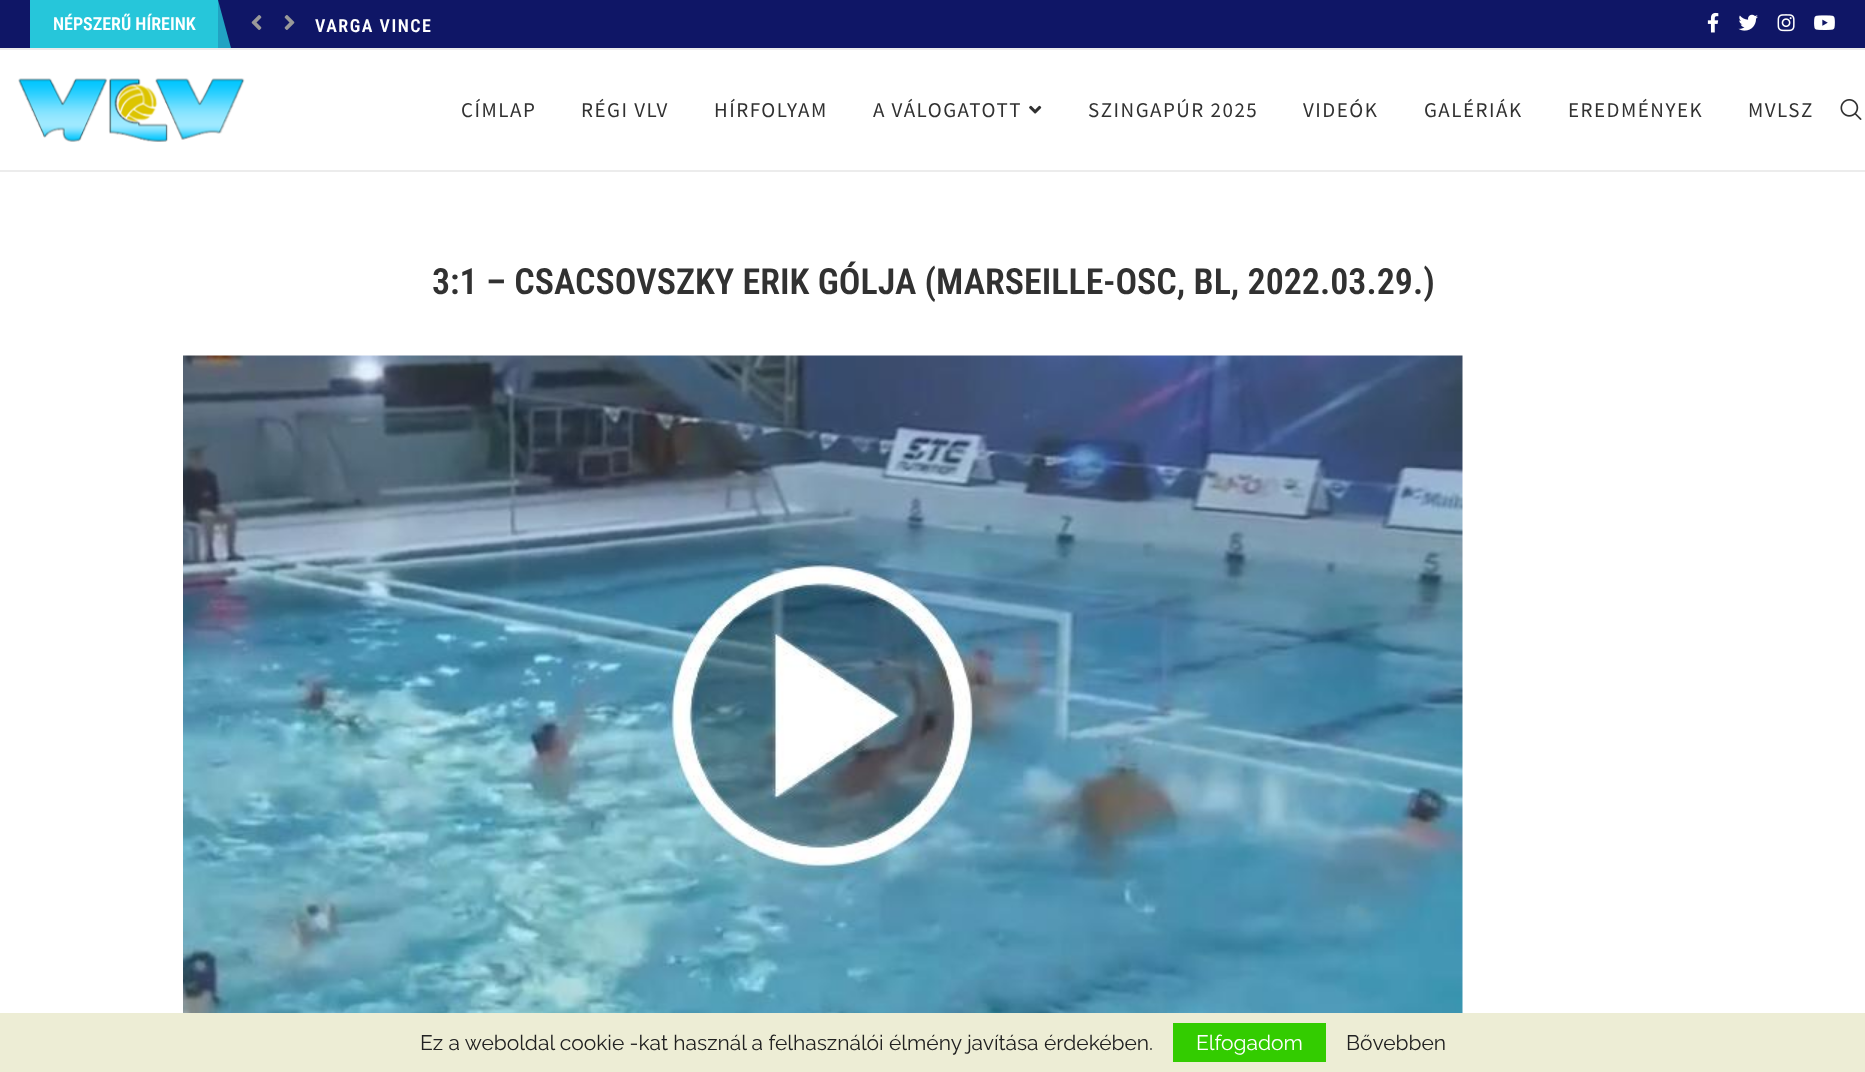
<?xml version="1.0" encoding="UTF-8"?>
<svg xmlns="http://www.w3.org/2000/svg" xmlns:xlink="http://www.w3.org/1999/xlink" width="1865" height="1072">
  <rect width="100%" height="100%" fill="#ffffff" />
  <rect width="1865" height="48" fill="#0f1666" />
  <rect x="30" width="188" height="48" fill="#26c6da" />
  <path d="M 231 48 h -13 v -48 z" fill="#21a3c3" />
  <image x="251" y="15" width="11" height="15" xlink:href="image1.png" />
  <image x="284" y="15" width="11" height="15" xlink:href="image2.png" />
  <image x="1707" y="12" width="12" height="21" xlink:href="image3.png" />
  <image x="1738" y="14" width="20" height="17" xlink:href="image4.png" />
  <image x="1777" y="14" width="18" height="18" xlink:href="image5.png" />
  <image x="1814" y="15" width="21" height="15" xlink:href="image6.png" />
  <rect y="48" width="1865" height="2" fill="#ececec" />
  <rect y="170" width="1865" height="2" fill="#ececec" />
  <image x="18" y="78" width="227" height="64" xlink:href="image7.png" />
  <image x="1029" y="105" width="13" height="9" xlink:href="image8.png" />
  <image x="1840" y="99" width="22" height="21" xlink:href="image9.png" />
  <image x="183" y="355" width="1280" height="658" xlink:href="image10.png" />
  <rect y="1013" width="1865" height="59" fill="#ededd5" />
  <rect x="1173" y="1023" width="153" height="39" fill="#33cc00" />
  <text x="53" y="30" style="font-family: Roboto Condensed; font-size: 18px; font-weight: 600; fill: #ffffff">NÉPSZERŰ HÍREINK</text>
  <text x="315" y="32" style="font-family: Roboto Condensed; font-size: 18px; font-weight: 600; letter-spacing: 1.5px; fill: #ffffff">VARGA VINCE</text>
  <text x="461" y="117" style="font-family: Source Sans Pro; font-size: 21px; letter-spacing: 1.5px; fill: #313131">CÍMLAP</text>
  <text x="581" y="117" style="font-family: Source Sans Pro; font-size: 21px; letter-spacing: 1.5px; fill: #313131">RÉGI VLV</text>
  <text x="714" y="117" style="font-family: Source Sans Pro; font-size: 21px; letter-spacing: 1.5px; fill: #313131">HÍRFOLYAM</text>
  <text x="873" y="117" style="font-family: Source Sans Pro; font-size: 21px; letter-spacing: 1.5px; fill: #313131">A VÁLOGATOTT</text>
  <text x="1088" y="117" style="font-family: Source Sans Pro; font-size: 21px; letter-spacing: 1.5px; fill: #313131">SZINGAPÚR 2025</text>
  <text x="1303" y="117" style="font-family: Source Sans Pro; font-size: 21px; letter-spacing: 1.5px; fill: #313131">VIDEÓK</text>
  <text x="1424" y="117" style="font-family: Source Sans Pro; font-size: 21px; letter-spacing: 1.5px; fill: #313131">GALÉRIÁK</text>
  <text x="1568" y="117" style="font-family: Source Sans Pro; font-size: 21px; letter-spacing: 1.5px; fill: #313131">EREDMÉNYEK</text>
  <text x="1748" y="117" style="font-family: Source Sans Pro; font-size: 21px; letter-spacing: 1.5px; fill: #313131">MVLSZ</text>
  <text x="432" y="294" style="font-family: Roboto Condensed; font-size: 36px; font-weight: 600; fill: #313131">3:1 – CSACSOVSZKY ERIK GÓLJA (MARSEILLE-OSC, BL, 2022.03.29.)</text>
  <text x="420" y="1050" style="font-family: Raleway; font-size: 21px; fill: #212121">Ez a weboldal cookie -kat használ a felhasználói élmény javítása érdekében.</text>
  <text x="1196" y="1050" style="font-family: Raleway; font-size: 21px; fill: #ffffff">Elfogadom</text>
  <text x="1346" y="1050" style="font-family: Raleway; font-size: 21px; fill: #212121">Bővebben</text>
</svg>
